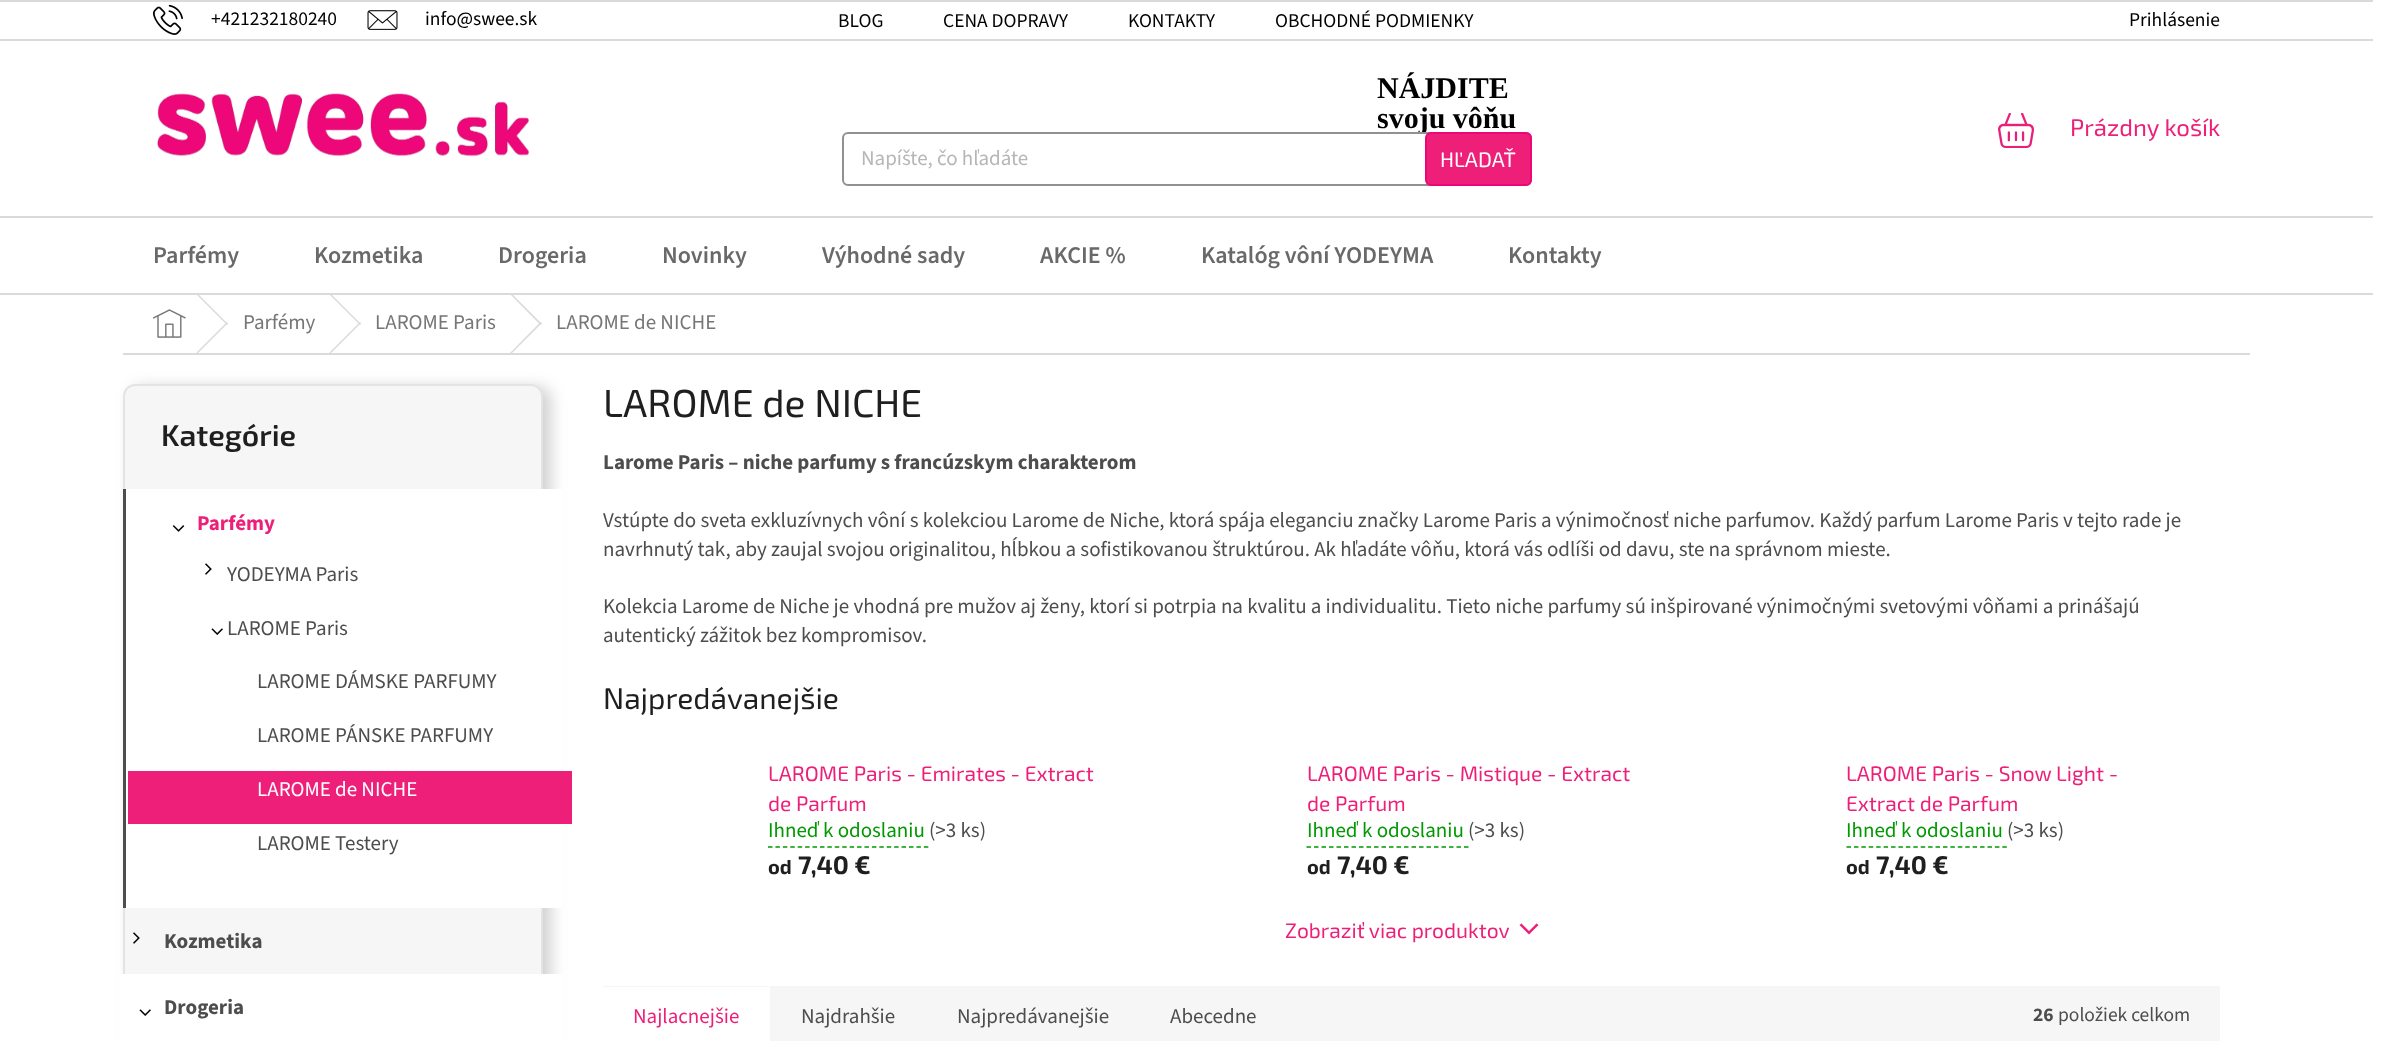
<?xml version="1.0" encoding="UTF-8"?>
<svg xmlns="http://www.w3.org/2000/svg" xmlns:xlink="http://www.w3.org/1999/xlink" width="2395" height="1041">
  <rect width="100%" height="100%" fill="#ffffff" />
  <rect width="2373" height="2" fill="#dadada" />
  <rect y="39" width="2373" height="2" fill="#dadada" />
  <image x="153" y="4" width="30" height="31" xlink:href="image1.png" />
  <image x="367" y="10" width="31" height="20" xlink:href="image2.png" />
  <path d="M 328.5 293.5 l 1 -1 l 31.5 31.5 l -1 1 z" fill="#dadada" />
  <path d="M 509.5 293.5 l 1 -1 l 31.5 31.5 l -1.5 1 z" fill="#dadada" />
  <rect x="329" y="292" width="182" height="1" fill="#ffffff" />
  <path d="M 196.5 294.5 l 1 -1 l 30.5 30.5 l -1 1 z" fill="#dadada" />
  <rect y="293" width="2373" height="2" fill="#dadada" />
  <image x="157" y="93" width="373" height="64" xlink:href="image3.png" />
  <image x="1998" y="113" width="36" height="35" xlink:href="image4.png" />
  <rect y="216" width="2373" height="2" fill="#dadada" />
  <rect x="123" y="353" width="2127" height="2" fill="#dadada" />
  <image x="153" y="309" width="33" height="29" xlink:href="image5.png" />
  <path d="M 227 322 l 1 1 l -30.5 30.5 l -1 -1 z" fill="#dadada" />
  <path d="M 360 322 l 1 1 l -31.5 31.5 l -1 -1 z" fill="#dadada" />
  <path d="M 540.5 322 l 1.5 1 l -31.5 31.5 l -1 -1 z" fill="#dadada" />
  <rect x="131" y="387" width="420" height="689" rx="12" fill="#d0d0d0" filter="blur(7.5px)" />
  <rect x="124" y="385" width="418" height="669" rx="11" fill="#f6f6f6" stroke="#e4e4e4" stroke-width="2" />
  <rect x="126" y="489" width="437" height="419" fill="#ffffff" />
  <rect x="123" y="489" width="3" height="419" fill="#4d4d4d" />
  <image x="172" y="525" width="13" height="7" xlink:href="image6.png" />
  <image x="205" y="563" width="7" height="12" xlink:href="image7.png" />
  <image x="211" y="628" width="12" height="7" xlink:href="image8.png" />
  <rect x="128" y="771" width="444" height="53" fill="#ed1f79" />
  <image x="133" y="932" width="7" height="12" xlink:href="image9.png" />
  <rect x="119" y="974" width="444" height="67" fill="#ffffff" />
  <image x="139" y="1009" width="12" height="7" xlink:href="image10.png" />
  <path d="M 768 847 h 160.5" fill="none" stroke="#009901" stroke-width="1.5" stroke-dasharray="4.5 2.92" />
  <path d="M 1306.5 847 h 162" fill="none" stroke="#009901" stroke-width="1.5" stroke-dasharray="4.5 3" />
  <path d="M 1846.5 847 h 160.5" fill="none" stroke="#009901" stroke-width="1.5" stroke-dasharray="4.5 2.92" />
  <path d="M 1519.5 925 l 2 -1.5 l 7.5 7.5 l 7.5 -7.5 l 2 1.5 l -9.5 9.5 z" fill="#ed1f79" />
  <rect x="603" y="986" width="1617" height="55" fill="#f6f6f6" />
  <rect x="603" y="987" width="167" height="54" fill="#ffffff" />
  <text x="211" y="25" style="font-family: 'Source Sans 3'; font-size: 19.5px; fill: #000000">+421232180240</text>
  <text x="425" y="25" style="font-family: 'Source Sans 3'; font-size: 19.5px; fill: #000000">info@swee.sk</text>
  <text x="838" y="27" style="font-family: 'Source Sans 3'; font-size: 19.5px; fill: #000000">BLOG</text>
  <text x="943" y="27" style="font-family: 'Source Sans 3'; font-size: 19.5px; fill: #000000">CENA DOPRAVY</text>
  <text x="1128" y="27" style="font-family: 'Source Sans 3'; font-size: 19.5px; fill: #000000">KONTAKTY</text>
  <text x="1275" y="27" style="font-family: 'Source Sans 3'; font-size: 19.5px; fill: #000000">OBCHODNÉ PODMIENKY</text>
  <text x="2129" y="26" style="font-family: 'Source Sans 3'; font-size: 19.5px; fill: #000000">Prihlásenie</text>
  <text x="1377" y="98" style="font-family: Liberation Serif; font-size: 30px; font-weight: bold; fill: #000000">NÁJDITE</text>
  <text x="1377" y="128" style="font-family: Liberation Serif; font-size: 30px; font-weight: bold; fill: #000000">svoju vôňu</text>
  <rect x="843" y="133" width="688" height="52" rx="5" fill="#ffffff" stroke="#919191" stroke-width="2" />
  <text x="861" y="165" style="font-family: 'Source Sans 3'; font-size: 21px; fill: #b6b6b6">Napíšte, čo hľadáte</text>
  <rect x="1426" y="133" width="105" height="52" rx="5" fill="#ed1f79" stroke="#ed0677" stroke-width="2" />
  <text x="1440" y="167" style="font-family: 'Exo 2'; font-size: 21px; fill: #ffffff">HĽADAŤ</text>
  <text x="2070" y="136" style="font-family: 'Exo 2'; font-size: 24px; fill: #ed1f79">Prázdny košík</text>
  <text x="153" y="263" style="font-family: 'Source Sans 3'; font-size: 24px; font-weight: 600; fill: #696969">Parfémy</text>
  <text x="314" y="263" style="font-family: 'Source Sans 3'; font-size: 24px; font-weight: 600; fill: #696969">Kozmetika</text>
  <text x="498" y="263" style="font-family: 'Source Sans 3'; font-size: 24px; font-weight: 600; fill: #696969">Drogeria</text>
  <text x="662" y="263" style="font-family: 'Source Sans 3'; font-size: 24px; font-weight: 600; fill: #696969">Novinky</text>
  <text x="822" y="263" style="font-family: 'Source Sans 3'; font-size: 24px; font-weight: 600; fill: #696969">Výhodné sady</text>
  <text x="1040" y="263" style="font-family: 'Source Sans 3'; font-size: 24px; font-weight: 600; fill: #696969">AKCIE %</text>
  <text x="1201" y="263" style="font-family: 'Source Sans 3'; font-size: 24px; font-weight: 600; fill: #696969">Katalóg vôní YODEYMA</text>
  <text x="1508" y="263" style="font-family: 'Source Sans 3'; font-size: 24px; font-weight: 600; fill: #696969">Kontakty</text>
  <text x="243" y="329" style="font-family: 'Source Sans 3'; font-size: 21px; fill: #767676">Parfémy</text>
  <text x="375" y="329" style="font-family: 'Source Sans 3'; font-size: 21px; fill: #767676">LAROME Paris</text>
  <text x="556" y="329" style="font-family: 'Source Sans 3'; font-size: 21px; fill: #767676">LAROME de NICHE</text>
  <text x="161" y="446" style="font-family: 'Exo 2'; font-size: 30px; font-weight: 600; fill: #1f1f1f">Kategórie</text>
  <text x="197" y="530" style="font-family: 'Source Sans 3'; font-size: 21px; font-weight: bold; fill: #ed1f79">Parfémy</text>
  <text x="227" y="581" style="font-family: 'Source Sans 3'; font-size: 21px; fill: #4d4d4d">YODEYMA Paris</text>
  <text x="227" y="635" style="font-family: 'Source Sans 3'; font-size: 21px; fill: #4d4d4d">LAROME Paris</text>
  <text x="257" y="688" style="font-family: 'Source Sans 3'; font-size: 21px; fill: #4d4d4d">LAROME DÁMSKE PARFUMY</text>
  <text x="257" y="742" style="font-family: 'Source Sans 3'; font-size: 21px; fill: #4d4d4d">LAROME PÁNSKE PARFUMY</text>
  <text x="257" y="796" style="font-family: 'Source Sans 3'; font-size: 21px; fill: #ffffff">LAROME de NICHE</text>
  <text x="257" y="850" style="font-family: 'Source Sans 3'; font-size: 21px; fill: #4d4d4d">LAROME Testery</text>
  <text x="164" y="948" style="font-family: 'Source Sans 3'; font-size: 21px; font-weight: bold; fill: #4d4d4d">Kozmetika</text>
  <text x="164" y="1014" style="font-family: 'Source Sans 3'; font-size: 21px; font-weight: bold; fill: #4d4d4d">Drogeria</text>
  <text x="603" y="417" style="font-family: 'Exo 2'; font-size: 39px; fill: #1f1f1f">LAROME de NICHE</text>
  <text x="603" y="469" style="font-family: 'Source Sans 3'; font-size: 21px; font-weight: bold; fill: #4d4d4d">Larome Paris – niche parfumy s francúzskym charakterom</text>
  <text x="603" y="527" style="font-family: 'Source Sans 3'; font-size: 21px; fill: #4d4d4d">Vstúpte do sveta exkluzívnych vôní s kolekciou Larome de Niche, ktorá spája eleganciu značky Larome Paris a výnimočnosť niche parfumov. Každý parfum Larome Paris v tejto rade je</text>
  <text x="603" y="556" style="font-family: 'Source Sans 3'; font-size: 21px; fill: #4d4d4d">navrhnutý tak, aby zaujal svojou originalitou, hĺbkou a sofistikovanou štruktúrou. Ak hľadáte vôňu, ktorá vás odlíši od davu, ste na správnom mieste.</text>
  <text x="603" y="613" style="font-family: 'Source Sans 3'; font-size: 21px; fill: #4d4d4d">Kolekcia Larome de Niche je vhodná pre mužov aj ženy, ktorí si potrpia na kvalitu a individualitu. Tieto niche parfumy sú inšpirované výnimočnými svetovými vôňami a prinášajú</text>
  <text x="603" y="642" style="font-family: 'Source Sans 3'; font-size: 21px; fill: #4d4d4d">autentický zážitok bez kompromisov.</text>
  <text x="603" y="709" style="font-family: 'Exo 2'; font-size: 30px; fill: #1f1f1f">Najpredávanejšie</text>
  <text x="768" y="781" style="font-family: 'Exo 2'; font-size: 21px; fill: #ed1f79">LAROME Paris - Emirates - Extract</text>
  <text x="768" y="811" style="font-family: 'Exo 2'; font-size: 21px; fill: #ed1f79">de Parfum</text>
  <text x="768" y="837" style="font-family: 'Source Sans 3'; font-size: 21px; fill: #009901">Ihneď k odoslaniu</text>
  <text x="929" y="837" style="font-family: 'Source Sans 3'; font-size: 21px; fill: #4d4d4d">(&gt;3 ks)</text>
  <text x="768" y="874" style="font-family: 'Exo 2'; font-size: 20px; font-weight: bold; fill: #1f1f1f">od</text>
  <text x="798" y="874" style="font-family: 'Exo 2'; font-size: 25.5px; font-weight: bold; fill: #1f1f1f">7,40 €</text>
  <text x="1307" y="781" style="font-family: 'Exo 2'; font-size: 21px; fill: #ed1f79">LAROME Paris - Mistique - Extract</text>
  <text x="1307" y="811" style="font-family: 'Exo 2'; font-size: 21px; fill: #ed1f79">de Parfum</text>
  <text x="1307" y="837" style="font-family: 'Source Sans 3'; font-size: 21px; fill: #009901">Ihneď k odoslaniu</text>
  <text x="1468" y="837" style="font-family: 'Source Sans 3'; font-size: 21px; fill: #4d4d4d">(&gt;3 ks)</text>
  <text x="1307" y="874" style="font-family: 'Exo 2'; font-size: 20px; font-weight: bold; fill: #1f1f1f">od</text>
  <text x="1337" y="874" style="font-family: 'Exo 2'; font-size: 25.5px; font-weight: bold; fill: #1f1f1f">7,40 €</text>
  <text x="1846" y="781" style="font-family: 'Exo 2'; font-size: 21px; fill: #ed1f79">LAROME Paris - Snow Light -</text>
  <text x="1846" y="811" style="font-family: 'Exo 2'; font-size: 21px; fill: #ed1f79">Extract de Parfum</text>
  <text x="1846" y="837" style="font-family: 'Source Sans 3'; font-size: 21px; fill: #009901">Ihneď k odoslaniu</text>
  <text x="2007" y="837" style="font-family: 'Source Sans 3'; font-size: 21px; fill: #4d4d4d">(&gt;3 ks)</text>
  <text x="1846" y="874" style="font-family: 'Exo 2'; font-size: 20px; font-weight: bold; fill: #1f1f1f">od</text>
  <text x="1876" y="874" style="font-family: 'Exo 2'; font-size: 25.5px; font-weight: bold; fill: #1f1f1f">7,40 €</text>
  <text x="1285" y="938" style="font-family: 'Exo 2'; font-size: 21px; fill: #ed1f79">Zobraziť viac produktov</text>
  <text x="633" y="1023" style="font-family: 'Source Sans 3'; font-size: 21px; fill: #ed1f79">Najlacnejšie</text>
  <text x="801" y="1023" style="font-family: 'Source Sans 3'; font-size: 21px; fill: #4d4d4d">Najdrahšie</text>
  <text x="957" y="1023" style="font-family: 'Source Sans 3'; font-size: 21px; fill: #4d4d4d">Najpredávanejšie</text>
  <text x="1170" y="1023" style="font-family: 'Source Sans 3'; font-size: 21px; fill: #4d4d4d">Abecedne</text>
  <text x="2033" y="1021" style="font-family: 'Source Sans 3'; font-size: 19.5px; font-weight: bold; fill: #4d4d4d">26</text>
  <text x="2058" y="1021" style="font-family: 'Source Sans 3'; font-size: 19.5px; fill: #4d4d4d">položiek celkom</text>
</svg>
